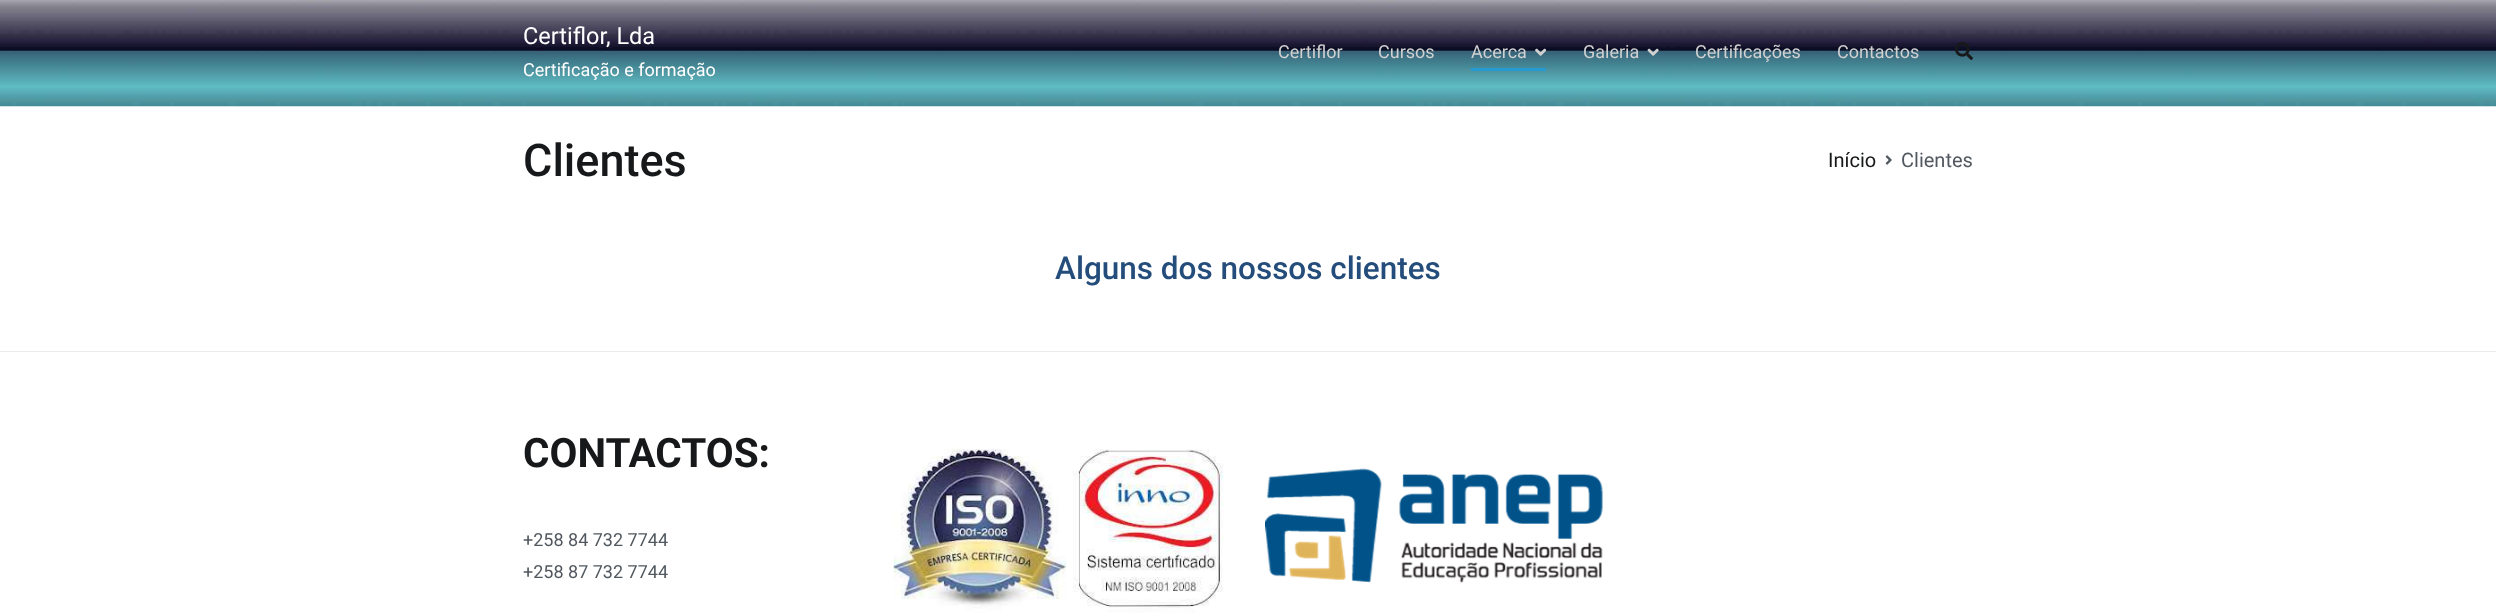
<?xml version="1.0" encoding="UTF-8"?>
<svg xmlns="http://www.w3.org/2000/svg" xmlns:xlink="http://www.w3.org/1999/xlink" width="2496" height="614">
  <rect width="100%" height="100%" fill="#ffffff" />
  <image x="0" y="0" width="2496" height="107" xlink:href="image1.png" />
  <image x="1535" y="48" width="12" height="8" xlink:href="image2.png" />
  <rect x="1471" y="68" width="75" height="3" fill="#269bd1" />
  <image x="1647" y="48" width="12" height="8" xlink:href="image3.png" />
  <image x="1955" y="42" width="18" height="18" xlink:href="image4.png" />
  <image x="1885" y="155" width="7" height="10" xlink:href="image5.png" />
  <rect y="351" width="2496" height="1" fill="#e9ecef" />
  <image x="893" y="447" width="331" height="166" xlink:href="image6.png" />
  <image x="1265" y="468" width="338" height="115" xlink:href="image7.png" />
  <text x="523" y="44" style="font-family: Roboto; font-size: 23.5px; fill: #ffffff">Certiflor, Lda</text>
  <text x="523" y="76" style="font-family: Roboto; font-size: 18px; fill: #ffffff">Certificação e formação</text>
  <text x="1278" y="58" style="font-family: Roboto; font-size: 18px; fill: #d1d1d1">Certiflor</text>
  <text x="1378" y="58" style="font-family: Roboto; font-size: 18px; fill: #d1d1d1">Cursos</text>
  <text x="1471" y="58" style="font-family: Roboto; font-size: 18px; fill: #d1d1d1">Acerca</text>
  <text x="1583" y="58" style="font-family: Roboto; font-size: 18px; fill: #d1d1d1">Galeria</text>
  <text x="1695" y="58" style="font-family: Roboto; font-size: 18px; fill: #d1d1d1">Certificações</text>
  <text x="1837" y="58" style="font-family: Roboto; font-size: 18px; fill: #d1d1d1">Contactos</text>
  <text x="523" y="176" style="font-family: Roboto; font-size: 45px; font-weight: 500; fill: #16181a">Clientes</text>
  <text x="1828" y="167" style="font-family: Roboto; font-size: 20px; fill: #16181a">Início</text>
  <text x="1901" y="167" style="font-family: Roboto; font-size: 20px; fill: #51585f">Clientes</text>
  <text x="1055" y="279" style="font-family: Roboto; font-size: 31.5px; font-weight: 500; fill: #244d7b">Alguns dos nossos clientes</text>
  <text x="523" y="467" style="font-family: Roboto; font-size: 40.5px; font-weight: bold; fill: #16181a">CONTACTOS:</text>
  <text x="523" y="546" style="font-family: Roboto; font-size: 18px; fill: #51585f">+258 84 732 7744</text>
  <text x="523" y="578" style="font-family: Roboto; font-size: 18px; fill: #51585f">+258 87 732 7744</text>
</svg>
